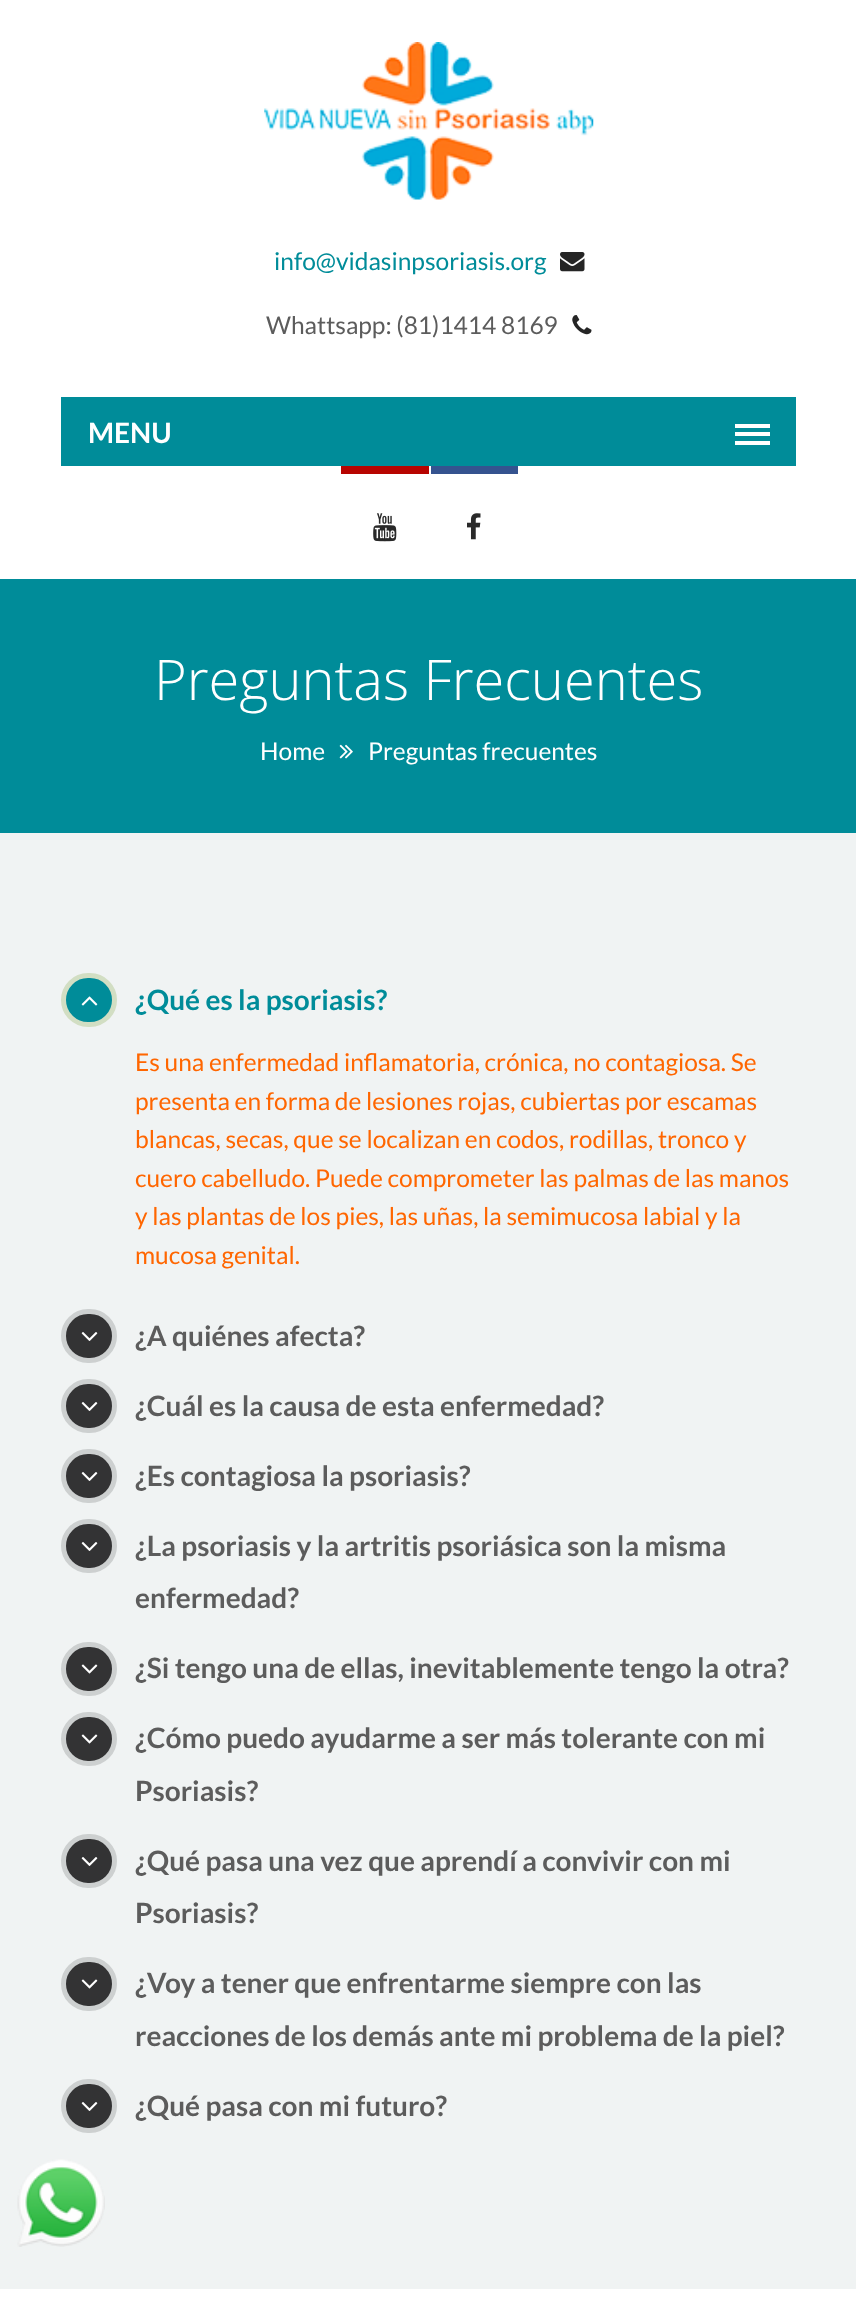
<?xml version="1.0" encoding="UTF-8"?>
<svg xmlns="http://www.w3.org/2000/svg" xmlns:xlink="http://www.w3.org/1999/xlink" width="856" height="2309">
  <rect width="100%" height="100%" fill="#f0f3f3" />
  <rect width="856" height="579" fill="#ffffff" />
  <image x="264" y="42" width="330" height="158" xlink:href="image1.png" />
  <image x="560" y="252" width="25" height="20" xlink:href="image2.png" />
  <image x="572" y="315" width="20" height="20" xlink:href="image3.png" />
  <rect x="61" y="397" width="735" height="69" fill="#008c99" />
  <rect x="735" y="432" width="35" height="4" fill="#ffffff" />
  <rect x="735" y="424" width="35" height="4" fill="#ffffff" />
  <rect x="735" y="441" width="35" height="4" fill="#ffffff" />
  <rect x="341" y="466" width="88" height="8" fill="#b70400" />
  <image x="373" y="513" width="24" height="29" xlink:href="image4.png" />
  <rect x="431" y="466" width="87" height="8" fill="#35538f" />
  <image x="467" y="513" width="14" height="27" xlink:href="image5.png" />
  <rect y="579" width="856" height="254" fill="#008c99" />
  <image x="339" y="744" width="14" height="15" xlink:href="image6.png" />
  <rect x="63.5" y="975.5" width="51" height="49" rx="24.5" fill="#008c99" stroke="#d2dec3" stroke-width="5" />
  <image x="81" y="996" width="17" height="10" xlink:href="image7.png" />
  <rect x="63.5" y="1311.5" width="51" height="49" rx="24.5" fill="#333334" stroke="#cdd0d0" stroke-width="5" />
  <image x="81" y="1332" width="17" height="9" xlink:href="image8.png" />
  <rect x="63.5" y="1381.5" width="51" height="49" rx="24.5" fill="#333334" stroke="#cdd0d0" stroke-width="5" />
  <image x="81" y="1402" width="17" height="9" xlink:href="image8.png" />
  <rect x="63.5" y="1451.5" width="51" height="49" rx="24.5" fill="#333334" stroke="#cdd0d0" stroke-width="5" />
  <image x="81" y="1472" width="17" height="9" xlink:href="image8.png" />
  <rect x="63.5" y="1521.5" width="51" height="49" rx="24.5" fill="#333334" stroke="#cdd0d0" stroke-width="5" />
  <image x="81" y="1542" width="17" height="9" xlink:href="image8.png" />
  <rect x="63.5" y="1644.5" width="51" height="49" rx="24.5" fill="#333334" stroke="#cdd0d0" stroke-width="5" />
  <image x="81" y="1664" width="17" height="10" xlink:href="image9.png" />
  <rect x="63.5" y="1714.5" width="51" height="49" rx="24.5" fill="#333334" stroke="#cdd0d0" stroke-width="5" />
  <image x="81" y="1734" width="17" height="10" xlink:href="image9.png" />
  <rect x="63.5" y="1836.5" width="51" height="49" rx="24.5" fill="#333334" stroke="#cdd0d0" stroke-width="5" />
  <image x="81" y="1857" width="17" height="9" xlink:href="image8.png" />
  <rect x="63.5" y="1959.5" width="51" height="49" rx="24.5" fill="#333334" stroke="#cdd0d0" stroke-width="5" />
  <image x="81" y="1979" width="17" height="10" xlink:href="image9.png" />
  <rect x="63.5" y="2081.5" width="51" height="49" rx="24.5" fill="#333334" stroke="#cdd0d0" stroke-width="5" />
  <image x="81" y="2102" width="17" height="9" xlink:href="image8.png" />
  <rect y="2289" width="856" height="20" fill="#ffffff" />
  <image x="17" y="2159" width="88" height="88" xlink:href="image10.png" />
  <text x="274" y="270" style="font-family: Lato; font-size: 24.5px; fill: #008c99">info@vidasinpsoriasis.org</text>
  <text x="266" y="334" style="font-family: Lato; font-size: 24.5px; fill: #5c5c5c">Whattsapp: (81)1414 8169</text>
  <text x="88" y="443" style="font-family: Lato; font-size: 28px; font-weight: bold; fill: #ffffff">MENU</text>
  <text x="154" y="700" style="font-family: Open Sans; font-size: 56px; font-weight: 300; fill: #ffffff">Preguntas Frecuentes</text>
  <text x="260" y="760" style="font-family: Lato; font-size: 24.5px; fill: #ffffff">Home</text>
  <text x="368" y="760" style="font-family: Lato; font-size: 24.5px; fill: #ffffff">Preguntas frecuentes</text>
  <text x="135" y="1010" style="font-family: Lato; font-size: 28px; font-weight: bold; fill: #008c99">¿Qué es la psoriasis?</text>
  <text x="135" y="1071" style="font-family: Lato; font-size: 24.5px; fill: #ff6600">Es una enfermedad inflamatoria, crónica, no contagiosa. Se</text>
  <text x="135" y="1110" style="font-family: Lato; font-size: 24.5px; fill: #ff6600">presenta en forma de lesiones rojas, cubiertas por escamas</text>
  <text x="135" y="1148" style="font-family: Lato; font-size: 24.5px; fill: #ff6600">blancas, secas, que se localizan en codos, rodillas, tronco y</text>
  <text x="135" y="1187" style="font-family: Lato; font-size: 24.5px; fill: #ff6600">cuero cabelludo. Puede comprometer las palmas de las manos</text>
  <text x="135" y="1225" style="font-family: Lato; font-size: 24.5px; fill: #ff6600">y las plantas de los pies, las uñas, la semimucosa labial y la</text>
  <text x="135" y="1264" style="font-family: Lato; font-size: 24.5px; fill: #ff6600">mucosa genital.</text>
  <text x="135" y="1346" style="font-family: Lato; font-size: 28px; font-weight: bold; fill: #5c5c5c">¿A quiénes afecta?</text>
  <text x="135" y="1416" style="font-family: Lato; font-size: 28px; font-weight: bold; fill: #5c5c5c">¿Cuál es la causa de esta enfermedad?</text>
  <text x="135" y="1486" style="font-family: Lato; font-size: 28px; font-weight: bold; fill: #5c5c5c">¿Es contagiosa la psoriasis?</text>
  <text x="135" y="1556" style="font-family: Lato; font-size: 28px; font-weight: bold; fill: #5c5c5c">¿La psoriasis y la artritis psoriásica son la misma</text>
  <text x="135" y="1608" style="font-family: Lato; font-size: 28px; font-weight: bold; fill: #5c5c5c">enfermedad?</text>
  <text x="135" y="1678" style="font-family: Lato; font-size: 28px; font-weight: bold; fill: #5c5c5c">¿Si tengo una de ellas, inevitablemente tengo la otra?</text>
  <text x="135" y="1748" style="font-family: Lato; font-size: 28px; font-weight: bold; fill: #5c5c5c">¿Cómo puedo ayudarme a ser más tolerante con mi</text>
  <text x="135" y="1801" style="font-family: Lato; font-size: 28px; font-weight: bold; fill: #5c5c5c">Psoriasis?</text>
  <text x="135" y="1871" style="font-family: Lato; font-size: 28px; font-weight: bold; fill: #5c5c5c">¿Qué pasa una vez que aprendí a convivir con mi</text>
  <text x="135" y="1923" style="font-family: Lato; font-size: 28px; font-weight: bold; fill: #5c5c5c">Psoriasis?</text>
  <text x="135" y="1993" style="font-family: Lato; font-size: 28px; font-weight: bold; fill: #5c5c5c">¿Voy a tener que enfrentarme siempre con las</text>
  <text x="135" y="2046" style="font-family: Lato; font-size: 28px; font-weight: bold; fill: #5c5c5c">reacciones de los demás ante mi problema de la piel?</text>
  <text x="135" y="2116" style="font-family: Lato; font-size: 28px; font-weight: bold; fill: #5c5c5c">¿Qué pasa con mi futuro?</text>
</svg>
